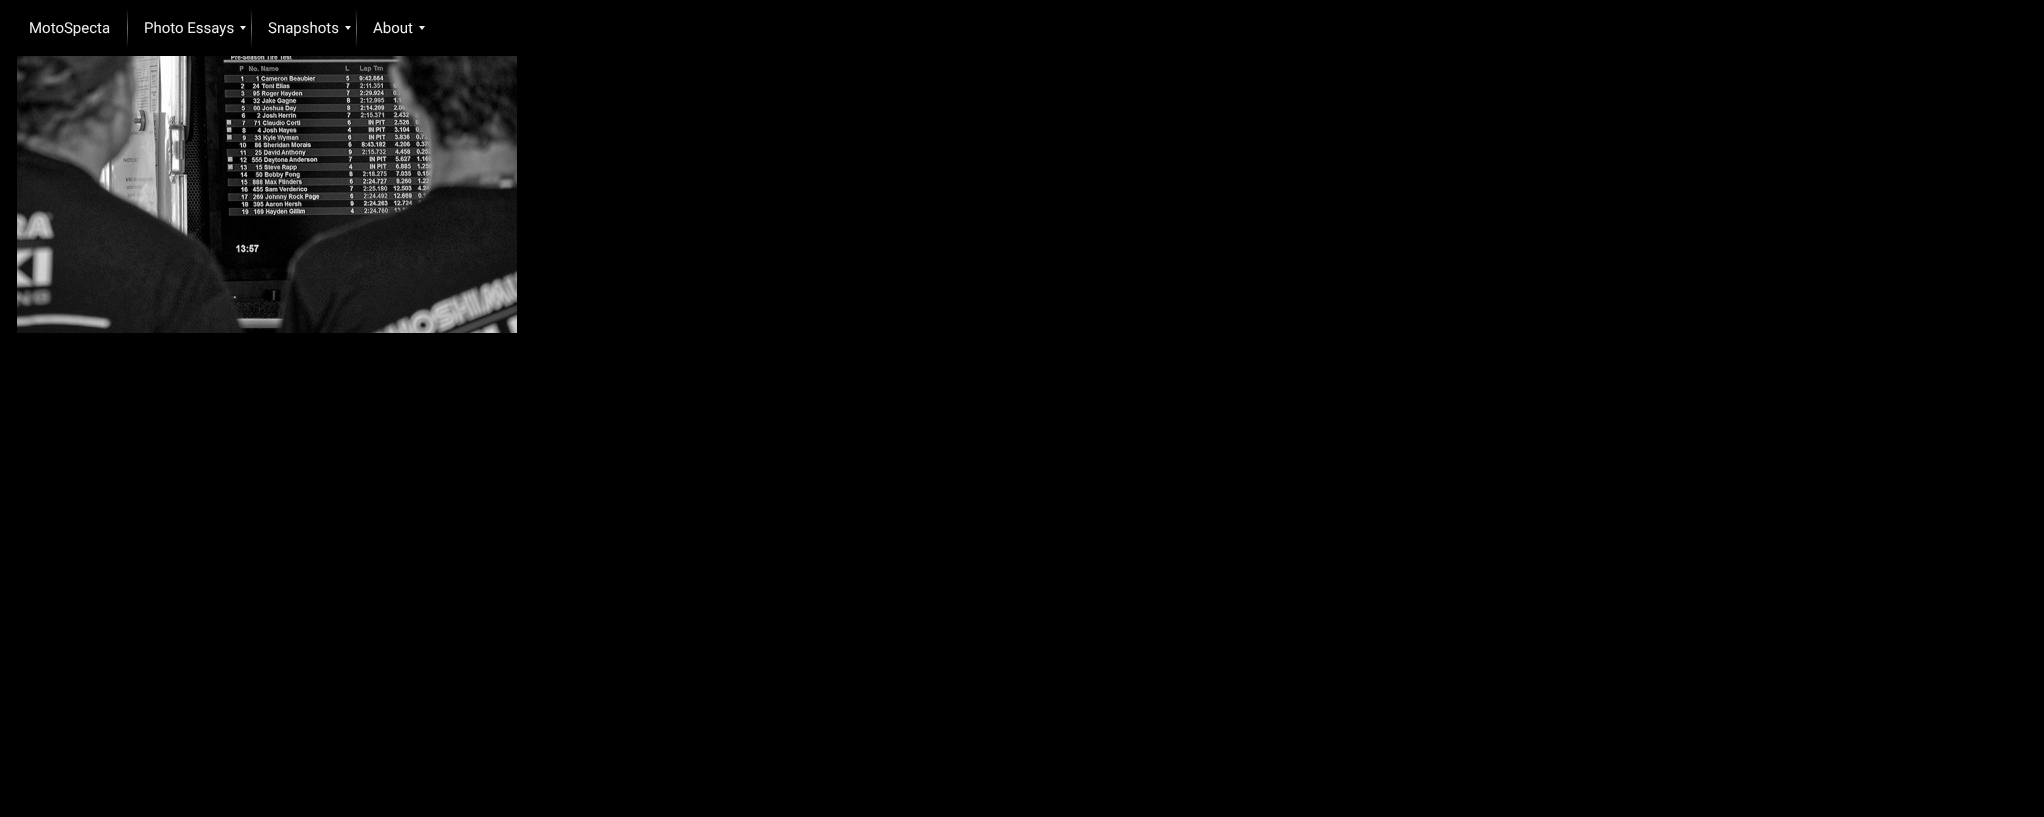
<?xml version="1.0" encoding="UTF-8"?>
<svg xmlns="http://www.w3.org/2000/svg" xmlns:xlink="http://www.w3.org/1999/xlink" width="2044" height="817">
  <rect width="100%" height="100%" fill="#000000" />
  <image x="126" y="10" width="2" height="37" xlink:href="image1.png" />
  <path d="M 240 26 h 6 l -3 4 z" fill="#eeeeee" />
  <image x="250" y="10" width="2" height="37" xlink:href="image1.png" />
  <path d="M 345 26 h 6 l -3 4 z" fill="#eeeeee" />
  <image x="355" y="10" width="2" height="37" xlink:href="image1.png" />
  <path d="M 419 26 h 6 l -3 4 z" fill="#eeeeee" />
  <image x="17" y="56" width="500" height="277" xlink:href="image2.png" />
  <text x="29" y="33" style="font-family: Roboto; font-size: 15px; fill: #eeeeee">MotoSpecta</text>
  <text x="144" y="33" style="font-family: Roboto; font-size: 15px; fill: #eeeeee">Photo Essays</text>
  <text x="268" y="33" style="font-family: Roboto; font-size: 15px; fill: #eeeeee">Snapshots</text>
  <text x="373" y="33" style="font-family: Roboto; font-size: 15px; fill: #eeeeee">About</text>
</svg>
